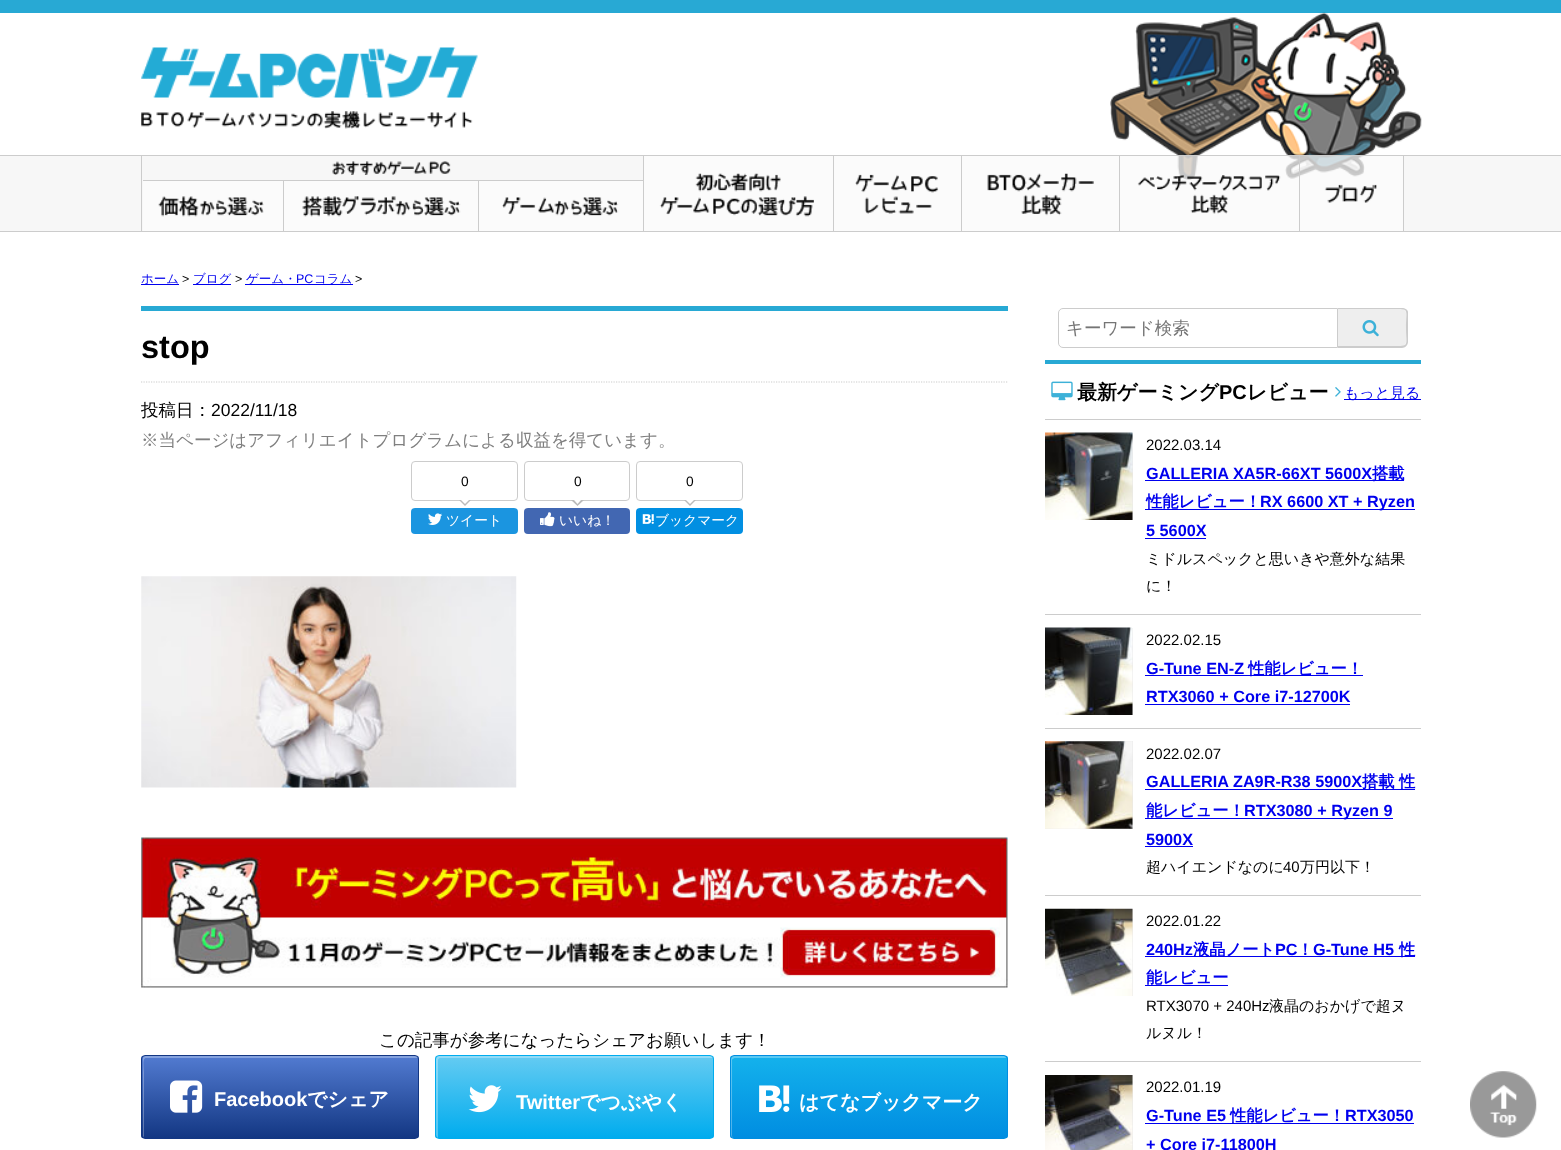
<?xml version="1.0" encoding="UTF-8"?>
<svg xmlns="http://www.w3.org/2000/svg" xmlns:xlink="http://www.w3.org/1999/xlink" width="1561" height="1150">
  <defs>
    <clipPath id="clip1"><rect x="141" y="1055" width="278" height="84" rx="4" /></clipPath>
    <linearGradient id="g1" gradientUnits="userSpaceOnUse" x1="280" y1="1138" x2="280" y2="1056"><stop offset="0" stop-color="#133783" /><stop offset="1" stop-color="#527bd1" /></linearGradient>
    <clipPath id="clip2"><rect x="435" y="1055" width="279" height="84" rx="4" /></clipPath>
    <linearGradient id="g2" gradientUnits="userSpaceOnUse" x1="574" y1="1138" x2="574" y2="1056"><stop offset="0" stop-color="#00acee" /><stop offset="1" stop-color="#64cbf2" /></linearGradient>
    <clipPath id="clip3"><rect x="730" y="1055" width="278" height="84" rx="4" /></clipPath>
    <linearGradient id="g3" gradientUnits="userSpaceOnUse" x1="869" y1="1138" x2="869" y2="1056"><stop offset="0" stop-color="#008de1" /><stop offset="1" stop-color="#14b2ec" /></linearGradient>
  </defs>
  <rect width="100%" height="100%" fill="#ffffff" />
  <rect width="1561" height="13" fill="#28a9d4" />
  <image x="1110" y="12" width="312" height="168" xlink:href="image1.png" />
  <image x="141" y="47" width="337" height="51" xlink:href="image2.png" />
  <image x="141" y="111" width="332" height="18" xlink:href="image3.png" />
  <rect y="156" width="1561" height="75" fill="#f0f0f0" fill-opacity="0.5" />
  <rect y="155" width="1561" height="1" fill="#cccccc" />
  <rect y="231" width="1561" height="1" fill="#cccccc" />
  <rect x="643" y="156" width="1" height="75" fill="#cccccc" />
  <rect x="141" y="156" width="1" height="75" fill="#cccccc" />
  <image x="332" y="161" width="119" height="14" xlink:href="image4.png" />
  <rect x="143" y="180" width="500" height="1" fill="#cccccc" />
  <rect x="143" y="181" width="140" height="50" fill="#fbfbfb" />
  <image x="158" y="196" width="106" height="21" xlink:href="image5.png" />
  <rect x="284" y="181" width="194" height="50" fill="#fbfbfb" />
  <rect x="283" y="181" width="1" height="50" fill="#cccccc" />
  <image x="302" y="196" width="159" height="21" xlink:href="image6.png" />
  <rect x="479" y="181" width="164" height="50" fill="#fbfbfb" />
  <rect x="478" y="181" width="1" height="50" fill="#cccccc" />
  <image x="502" y="197" width="117" height="19" xlink:href="image7.png" />
  <rect x="644" y="156" width="189" height="75" fill="#fbfbfb" />
  <rect x="833" y="156" width="1" height="75" fill="#cccccc" />
  <image x="659" y="173" width="155" height="44" xlink:href="image8.png" />
  <rect x="834" y="156" width="285" height="75" fill="#fbfbfb" />
  <rect x="961" y="156" width="1" height="75" fill="#cccccc" />
  <image x="855" y="174" width="84" height="40" xlink:href="image9.png" />
  <rect x="1119" y="156" width="1" height="75" fill="#cccccc" />
  <image x="987" y="173" width="107" height="43" xlink:href="image10.png" />
  <rect x="1120" y="156" width="179" height="75" fill="#ffffff" fill-opacity="0.5" />
  <rect x="1299" y="156" width="1" height="75" fill="#cccccc" />
  <image x="1137" y="175" width="144" height="39" xlink:href="image11.png" />
  <rect x="1300" y="156" width="103" height="75" fill="#ffffff" fill-opacity="0.5" />
  <rect x="1403" y="156" width="1" height="75" fill="#cccccc" />
  <image x="1324" y="184" width="53" height="19" xlink:href="image12.png" />
  <rect x="141" y="284" width="38" height="1" fill="#0000ee" />
  <rect x="193" y="284" width="38" height="1" fill="#0000ee" />
  <rect x="245" y="284" width="108" height="1" fill="#0000ee" />
  <rect x="141" y="306" width="867" height="5" fill="#28a9d4" />
  <path d="M 141 382 h 866.5" fill="none" stroke="#cccccc" stroke-width="1.2" stroke-dasharray="1.25 1.25" />
  <rect x="411.5" y="461.5" width="106" height="39" rx="3.5" fill="none" stroke="#cccccc" />
  <path d="M 459 500 h 12 l -6 6 z" fill="#bbbbbb" />
  <path d="M 461 500 h 8 l -4 4 z" fill="#ffffff" />
  <rect x="411" y="508" width="107" height="26" rx="4" fill="#1b95e0" />
  <image x="428" y="513" width="14" height="12" xlink:href="image13.png" />
  <rect x="524.5" y="461.5" width="105" height="39" rx="3.5" fill="none" stroke="#cccccc" />
  <path d="M 571 500 h 13 l -6.5 6 z" fill="#bbbbbb" />
  <path d="M 574 500 h 7 l -3.5 4 z" fill="#ffffff" />
  <rect x="524" y="508" width="106" height="26" rx="4" fill="#4267b2" />
  <image x="540" y="512" width="15" height="15" xlink:href="image14.png" />
  <rect x="636.5" y="461.5" width="106" height="39" rx="3.5" fill="none" stroke="#cccccc" />
  <path d="M 684 500 h 12 l -6 6 z" fill="#bbbbbb" />
  <path d="M 686 500 h 8 l -4 4 z" fill="#ffffff" />
  <rect x="636" y="508" width="107" height="26" rx="4" fill="#018fe2" />
  <image x="642" y="514" width="12" height="10" xlink:href="image15.png" />
  <image x="141" y="576" width="376" height="212" xlink:href="image16.png" />
  <image x="141" y="837" width="867" height="151" xlink:href="image17.png" />
  <g clip-path="url(#clip1)">
    <rect x="141" y="1056" width="278" height="82" fill="url(#g1)" />
  </g>
  <path d="M 146 1058 h 270 h 2 c 0 -1 -1 -2 -2 -2 h -270 c -2 0 -3 1 -3 2 v 78 c 0 0 1 1 1 2 v -65 c 0 -4 -2 -15 2 -15 z" fill="#ffffff" fill-opacity="0.3" />
  <rect x="141.5" y="1055.5" width="277" height="83" rx="3.5" fill="none" stroke="#133783" />
  <image x="170" y="1080" width="33" height="33" xlink:href="image18.png" />
  <g clip-path="url(#clip2)">
    <rect x="435" y="1056" width="279" height="82" fill="url(#g2)" />
  </g>
  <path d="M 440 1058 h 271 h 2 c 0 -1 -1 -2 -3 -2 h -272 c -1 0 -2 1 -2 2 v 78 c 0 1 1 2 2 2 v -2 v -76 c 0 -1 1 -2 2 -2 z" fill="#ffffff" fill-opacity="0.3" />
  <rect x="435.5" y="1055.5" width="278" height="83" rx="3.5" fill="none" stroke="#00acee" />
  <image x="468" y="1085" width="34" height="28" xlink:href="image19.png" />
  <g clip-path="url(#clip3)">
    <rect x="730" y="1056" width="278" height="82" fill="url(#g3)" />
  </g>
  <path d="M 735 1058 h 271 c 0 -1 -1 -2 -2 -2 h -270 c -2 0 -3 1 -3 2 v 78 c 0 1 1 2 2 2 l -1 -2 v -76 c 0 -1 2 -2 3 -2 z" fill="#ffffff" fill-opacity="0.3" />
  <rect x="730.5" y="1055.5" width="277" height="83" rx="3.5" fill="none" stroke="#008de1" />
  <image x="759" y="1085" width="31" height="27" xlink:href="image20.png" />
  <path d="M 1063 308.5 h 274.5 v 39 h -274.5 c -2.5 0 -4.5 -2 -4.5 -4.5 v -30 c 0 -2.5 2 -4.5 4.5 -4.5 z" fill="none" stroke="#cccccc" />
  <path d="M 1338 309 h 64 c 2 0 4 2 4 4 v 29 c 0 2 -2 4 -4 4 h -64 z" fill="#eeeeee" />
  <path d="M 1338 308 h 64 c 3 0 6 2 6 4 v 30 c 0 3 -3 6 -6 6 h -64 z m 0 1 h 54 c 18 0 14 -1 14 19 c 0 19 4 18 -14 18 h -54 z" fill="#cccccc" fill-rule="evenodd" />
  <image x="1362" y="320" width="17" height="17" xlink:href="image21.png" />
  <rect x="1045" y="360" width="376" height="4" fill="#28a9d4" />
  <rect x="1045" y="419" width="376" height="1" fill="#cccccc" />
  <image x="1051" y="381" width="22" height="20" xlink:href="image22.png" />
  <image x="1335" y="387" width="6" height="10" xlink:href="image23.png" />
  <rect x="1344" y="399" width="77" height="1" fill="#0000ee" />
  <rect x="1045" y="614" width="376" height="1" fill="#cccccc" />
  <rect x="1132" y="433" width="1" height="87" fill="#e9e9e9" />
  <image x="1045" y="432" width="88" height="88" xlink:href="image24.png" />
  <rect x="1145" y="480" width="259" height="1" fill="#0000ee" />
  <rect x="1145" y="509" width="270" height="1" fill="#0000ee" />
  <rect x="1145" y="538" width="61" height="1" fill="#0000ee" />
  <rect x="1045" y="728" width="376" height="1" fill="#cccccc" />
  <rect x="1132" y="628" width="1" height="87" fill="#e9e9e9" />
  <image x="1045" y="627" width="88" height="88" xlink:href="image25.png" />
  <rect x="1145" y="675" width="218" height="1" fill="#0000ee" />
  <rect x="1145" y="704" width="205" height="1" fill="#0000ee" />
  <rect x="1045" y="895" width="376" height="1" fill="#cccccc" />
  <rect x="1045" y="741" width="88" height="88" fill="#e9e9e9" />
  <image x="1045" y="741" width="88" height="88" xlink:href="image26.png" />
  <rect x="1145" y="789" width="270" height="1" fill="#0000ee" />
  <rect x="1145" y="818" width="248" height="1" fill="#0000ee" />
  <rect x="1145" y="846" width="48" height="1" fill="#0000ee" />
  <rect x="1045" y="1061" width="376" height="1" fill="#cccccc" />
  <rect x="1132" y="909" width="1" height="87" fill="#e9e9e9" />
  <image x="1045" y="908" width="88" height="88" xlink:href="image27.png" />
  <rect x="1145" y="956" width="270" height="1" fill="#0000ee" />
  <rect x="1145" y="985" width="83" height="1" fill="#0000ee" />
  <rect x="1132" y="1075" width="1" height="75" fill="#e9e9e9" />
  <image x="1045" y="1075" width="88" height="75" xlink:href="image28.png" />
  <rect x="1145" y="1123" width="269" height="1" fill="#0000ee" />
  <image x="1470" y="1071" width="67" height="67" xlink:href="image29.png" />
  <text x="141" y="283" style="font-family: WenQuanYi Zen Hei; font-size: 12.5px; font-weight: 500; fill: #0000ee">ホーム</text>
  <text x="182" y="283" style="font-family: Liberation Sans; font-size: 12.5px; fill: #000000">&gt;</text>
  <text x="193" y="283" style="font-family: WenQuanYi Zen Hei; font-size: 12.5px; font-weight: 500; fill: #0000ee">ブログ</text>
  <text x="235" y="283" style="font-family: Liberation Sans; font-size: 12.5px; fill: #000000">&gt;</text>
  <text x="246" y="283" style="font-family: WenQuanYi Zen Hei; font-size: 12.5px; font-weight: 500; fill: #0000ee">ゲーム・</text>
  <text x="296" y="283" style="font-family: Liberation Sans; font-size: 12.5px; fill: #0000ee">PC</text>
  <text x="314" y="283" style="font-family: WenQuanYi Zen Hei; font-size: 12.5px; font-weight: 500; fill: #0000ee">コラム</text>
  <text x="355" y="283" style="font-family: Liberation Sans; font-size: 12.5px; fill: #000000">&gt;</text>
  <text x="141" y="358" style="font-family: Liberation Sans; font-size: 32.5px; font-weight: bold; fill: #000000">stop</text>
  <text x="141" y="416" style="font-family: WenQuanYi Zen Hei; font-size: 17.5px; font-weight: 500; fill: #000000">投稿日：</text>
  <text x="211" y="416" style="font-family: Liberation Sans; font-size: 17.5px; fill: #000000">2022/11/18</text>
  <text x="141" y="446" style="font-family: WenQuanYi Zen Hei; font-size: 17.5px; font-weight: 500; fill: #808080">※当ページはアフィリエイトプログラムによる収益を得ています。</text>
  <text x="461" y="486" style="font-family: Liberation Sans; font-size: 13.75px; fill: #000000">0</text>
  <text x="446" y="525" style="font-family: WenQuanYi Zen Hei; font-size: 13.75px; font-weight: 500; fill: #ffffff">ツイート</text>
  <text x="574" y="486" style="font-family: Liberation Sans; font-size: 13.75px; fill: #000000">0</text>
  <text x="559" y="525" style="font-family: WenQuanYi Zen Hei; font-size: 13.75px; font-weight: 500; fill: #ffffff">いいね！</text>
  <text x="686" y="486" style="font-family: Liberation Sans; font-size: 13.75px; fill: #000000">0</text>
  <text x="655" y="525" style="font-family: WenQuanYi Zen Hei; font-size: 13.75px; font-weight: 500; fill: #ffffff">ブックマーク</text>
  <text x="379" y="1046" style="font-family: WenQuanYi Zen Hei; font-size: 17.5px; font-weight: 500; fill: #000000">この記事が参考になったらシェアお願いします！</text>
  <text x="214" y="1106" style="font-family: Liberation Sans; font-size: 20px; font-weight: bold; fill: #ffffff">Facebook</text>
  <text x="307" y="1106" style="font-family: WenQuanYi Zen Hei; font-size: 20px; font-weight: bold; fill: #ffffff">でシェア</text>
  <text x="516" y="1109" style="font-family: Liberation Sans; font-size: 20px; font-weight: bold; fill: #ffffff">Twitter</text>
  <text x="580" y="1109" style="font-family: WenQuanYi Zen Hei; font-size: 20px; font-weight: bold; fill: #ffffff">でつぶやく</text>
  <text x="799" y="1109" style="font-family: WenQuanYi Zen Hei; font-size: 20px; font-weight: bold; fill: #ffffff">はてなブックマーク</text>
  <text x="1066" y="334" style="font-family: WenQuanYi Zen Hei; font-size: 17.5px; font-weight: 500; fill: #757575">キーワード検索</text>
  <text x="1077" y="399" style="font-family: WenQuanYi Zen Hei; font-size: 20px; font-weight: bold; fill: #000000">最新ゲーミング</text>
  <text x="1219" y="399" style="font-family: Liberation Sans; font-size: 20px; font-weight: bold; fill: #000000">PC</text>
  <text x="1247" y="399" style="font-family: WenQuanYi Zen Hei; font-size: 20px; font-weight: bold; fill: #000000">レビュー</text>
  <text x="1344" y="398" style="font-family: WenQuanYi Zen Hei; font-size: 15px; font-weight: 500; fill: #0000ee">もっと見る</text>
  <text x="1146" y="450" style="font-family: Liberation Sans; font-size: 15px; fill: #000000">2022.03.14</text>
  <text x="1146" y="479" style="font-family: Liberation Sans; font-size: 16.25px; font-weight: bold; fill: #0000ee">GALLERIA XA5R-66XT 5600X</text>
  <text x="1372" y="479" style="font-family: WenQuanYi Zen Hei; font-size: 16.25px; font-weight: bold; fill: #0000ee">搭載</text>
  <text x="1146" y="507" style="font-family: WenQuanYi Zen Hei; font-size: 16.25px; font-weight: bold; fill: #0000ee">性能レビュー！</text>
  <text x="1260" y="507" style="font-family: Liberation Sans; font-size: 16.25px; font-weight: bold; fill: #0000ee">RX 6600 XT + Ryzen</text>
  <text x="1146" y="536" style="font-family: Liberation Sans; font-size: 16.25px; font-weight: bold; fill: #0000ee">5 5600X</text>
  <text x="1146" y="564" style="font-family: WenQuanYi Zen Hei; font-size: 15px; font-weight: 500; fill: #000000">ミドルスペックと思いきや意外な結果</text>
  <text x="1146" y="591" style="font-family: WenQuanYi Zen Hei; font-size: 15px; font-weight: 500; fill: #000000">に！</text>
  <text x="1146" y="645" style="font-family: Liberation Sans; font-size: 15px; fill: #000000">2022.02.15</text>
  <text x="1146" y="674" style="font-family: Liberation Sans; font-size: 16.25px; font-weight: bold; fill: #0000ee">G-Tune EN-Z</text>
  <text x="1248" y="674" style="font-family: WenQuanYi Zen Hei; font-size: 16.25px; font-weight: bold; fill: #0000ee">性能レビュー！</text>
  <text x="1146" y="702" style="font-family: Liberation Sans; font-size: 16.25px; font-weight: bold; fill: #0000ee">RTX3060 + Core i7-12700K</text>
  <text x="1146" y="759" style="font-family: Liberation Sans; font-size: 15px; fill: #000000">2022.02.07</text>
  <text x="1146" y="787" style="font-family: Liberation Sans; font-size: 16.25px; font-weight: bold; fill: #0000ee">GALLERIA ZA9R-R38 5900X</text>
  <text x="1362" y="787" style="font-family: WenQuanYi Zen Hei; font-size: 16.25px; font-weight: bold; fill: #0000ee">搭載</text>
  <text x="1399" y="787" style="font-family: WenQuanYi Zen Hei; font-size: 16.25px; font-weight: bold; fill: #0000ee">性</text>
  <text x="1146" y="816" style="font-family: WenQuanYi Zen Hei; font-size: 16.25px; font-weight: bold; fill: #0000ee">能レビュー！</text>
  <text x="1244" y="816" style="font-family: Liberation Sans; font-size: 16.25px; font-weight: bold; fill: #0000ee">RTX3080 + Ryzen 9</text>
  <text x="1146" y="845" style="font-family: Liberation Sans; font-size: 16.25px; font-weight: bold; fill: #0000ee">5900X</text>
  <text x="1146" y="872" style="font-family: WenQuanYi Zen Hei; font-size: 15px; font-weight: 500; fill: #000000">超ハイエンドなのに</text>
  <text x="1283" y="872" style="font-family: Liberation Sans; font-size: 15px; fill: #000000">40</text>
  <text x="1300" y="872" style="font-family: WenQuanYi Zen Hei; font-size: 15px; font-weight: 500; fill: #000000">万円以下！</text>
  <text x="1146" y="926" style="font-family: Liberation Sans; font-size: 15px; fill: #000000">2022.01.22</text>
  <text x="1146" y="955" style="font-family: Liberation Sans; font-size: 16.25px; font-weight: bold; fill: #0000ee">240Hz</text>
  <text x="1193" y="955" style="font-family: WenQuanYi Zen Hei; font-size: 16.25px; font-weight: bold; fill: #0000ee">液晶ノート</text>
  <text x="1275" y="955" style="font-family: Liberation Sans; font-size: 16.25px; font-weight: bold; fill: #0000ee">PC</text>
  <text x="1297" y="955" style="font-family: WenQuanYi Zen Hei; font-size: 16.25px; font-weight: bold; fill: #0000ee">！</text>
  <text x="1313" y="955" style="font-family: Liberation Sans; font-size: 16.25px; font-weight: bold; fill: #0000ee">G-Tune H5</text>
  <text x="1399" y="955" style="font-family: WenQuanYi Zen Hei; font-size: 16.25px; font-weight: bold; fill: #0000ee">性</text>
  <text x="1146" y="983" style="font-family: WenQuanYi Zen Hei; font-size: 16.25px; font-weight: bold; fill: #0000ee">能レビュー</text>
  <text x="1146" y="1011" style="font-family: Liberation Sans; font-size: 15px; fill: #000000">RTX3070 + 240Hz</text>
  <text x="1269" y="1011" style="font-family: WenQuanYi Zen Hei; font-size: 15px; font-weight: 500; fill: #000000">液晶のおかげで超ヌ</text>
  <text x="1146" y="1038" style="font-family: WenQuanYi Zen Hei; font-size: 15px; font-weight: 500; fill: #000000">ルヌル！</text>
  <text x="1146" y="1092" style="font-family: Liberation Sans; font-size: 15px; fill: #000000">2022.01.19</text>
  <text x="1146" y="1121" style="font-family: Liberation Sans; font-size: 16.25px; font-weight: bold; fill: #0000ee">G-Tune E5</text>
  <text x="1230" y="1121" style="font-family: WenQuanYi Zen Hei; font-size: 16.25px; font-weight: bold; fill: #0000ee">性能レビュー！</text>
  <text x="1345" y="1121" style="font-family: Liberation Sans; font-size: 16.25px; font-weight: bold; fill: #0000ee">RTX3050</text>
  <text x="1146" y="1150" style="font-family: Liberation Sans; font-size: 16.25px; font-weight: bold; fill: #0000ee">+ Core i7-11800H</text>
</svg>
